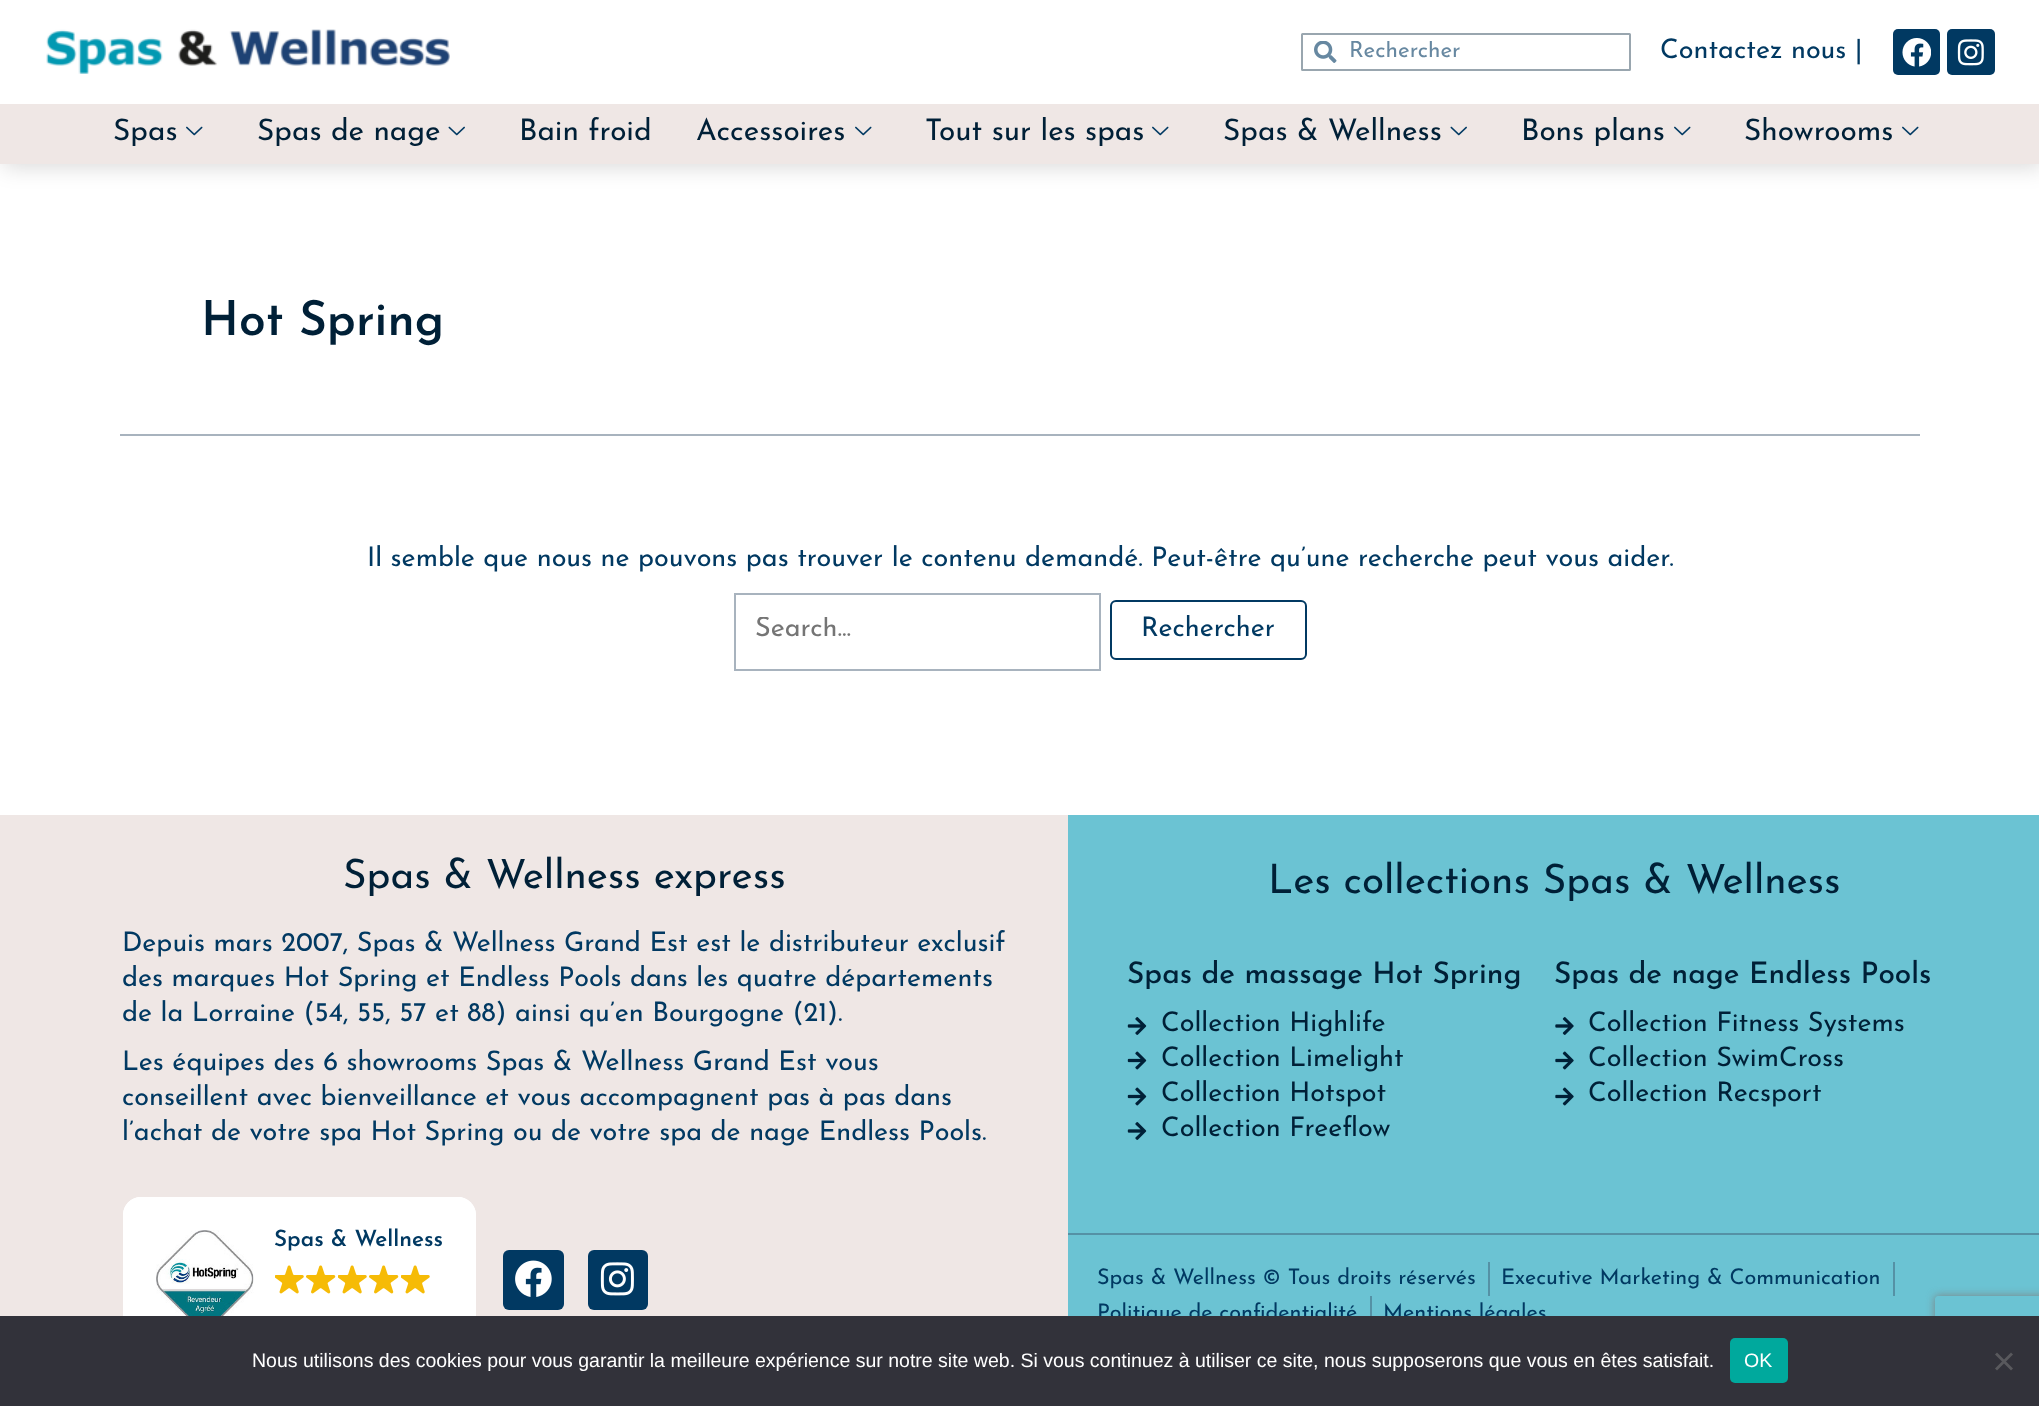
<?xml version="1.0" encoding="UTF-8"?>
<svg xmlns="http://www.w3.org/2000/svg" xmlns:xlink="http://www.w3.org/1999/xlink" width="2039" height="1406">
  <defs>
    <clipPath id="clip1"><path d="M 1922 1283 h 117 v 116 h -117 z m 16 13 h 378 c 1.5 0 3 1.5 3 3 v 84 c 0 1.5 -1.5 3 -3 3 h -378 c -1.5 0 -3 -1.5 -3 -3 v -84 c 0 -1.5 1.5 -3 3 -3 z" clip-rule="evenodd" /></clipPath>
    <clipPath id="clip2"><rect x="1349" y="41" width="261" height="22" /></clipPath>
    <clipPath id="clip3"><rect x="756" y="617" width="318" height="27" /></clipPath>
  </defs>
  <rect width="100%" height="100%" fill="#ffffff" />
  <rect x="3" y="3" width="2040" height="164" fill="#000000" fill-opacity="0.15" filter="blur(11px)" />
  <rect width="2039" height="104" fill="#ffffff" />
  <image x="46" y="29" width="404" height="45" xlink:href="image1.png" />
  <rect x="1302" y="34" width="328" height="36" rx="0.5" fill="none" stroke="#99a6af" stroke-width="2" />
  <image x="1314" y="41" width="23" height="22" xlink:href="image2.png" />
  <rect x="1893" y="29" width="47" height="46" rx="5" fill="#013962" />
  <image x="1902" y="38" width="29" height="29" xlink:href="image3.png" />
  <rect x="1947" y="29" width="48" height="46" rx="5" fill="#013962" />
  <image x="1957" y="39" width="27" height="27" xlink:href="image4.png" />
  <rect y="104" width="2039" height="60" fill="#efe7e5" />
  <image x="186" y="126" width="17" height="10" xlink:href="image5.png" />
  <image x="448" y="126" width="17" height="10" xlink:href="image6.png" />
  <image x="855" y="126" width="17" height="10" xlink:href="image5.png" />
  <image x="1152" y="126" width="17" height="10" xlink:href="image5.png" />
  <image x="1450" y="126" width="17" height="10" xlink:href="image6.png" />
  <image x="1674" y="126" width="17" height="10" xlink:href="image5.png" />
  <image x="1902" y="126" width="17" height="10" xlink:href="image5.png" />
  <rect x="120" y="434" width="1800" height="2" fill="#a8b3be" />
  <rect x="735" y="594" width="365" height="76" fill="none" stroke="#a8b3be" stroke-width="2" />
  <rect x="1111" y="601" width="195" height="58" rx="5" fill="none" stroke="#013962" stroke-width="2" />
  <rect y="815" width="1068" height="501" fill="#efe7e5" />
  <rect x="123" y="1197" width="353" height="167" rx="18" fill="#ffffff" />
  <path d="M 141 1197 h 317 c 9 0 18 8 18 18 v 131 c 0 9 -9 18 -18 18 h -317 c -10 0 -18 -9 -18 -18 v -131 c 0 -10 8 -18 18 -18 z m 0 3 h 317 c 8 0 14 7 14 15 v 131 c 0 9 -6 18 -14 18 h -317 c -8 0 -15 -9 -15 -18 v -131 c 0 -8 7 -15 15 -15 z" fill="#ffffff" fill-rule="evenodd" />
  <image x="156" y="1230" width="98" height="86" xlink:href="image7.png" />
  <image x="275" y="1265" width="29" height="29" xlink:href="image8.png" />
  <image x="306" y="1265" width="30" height="29" xlink:href="image9.png" />
  <image x="338" y="1265" width="29" height="29" xlink:href="image8.png" />
  <image x="369" y="1265" width="30" height="29" xlink:href="image9.png" />
  <image x="401" y="1265" width="29" height="29" xlink:href="image8.png" />
  <rect x="503" y="1250" width="61" height="60" rx="6" fill="#013962" />
  <image x="515" y="1260" width="37" height="37" xlink:href="image10.png" />
  <rect x="588" y="1250" width="60" height="60" rx="6" fill="#013962" />
  <image x="600" y="1262" width="34" height="34" xlink:href="image11.png" />
  <rect x="1068" y="815" width="971" height="501" fill="#6bc3d3" />
  <image x="1127" y="1017" width="20" height="18" xlink:href="image12.png" />
  <image x="1127" y="1051" width="20" height="19" xlink:href="image13.png" />
  <image x="1127" y="1087" width="20" height="19" xlink:href="image13.png" />
  <image x="1127" y="1122" width="20" height="18" xlink:href="image12.png" />
  <image x="1555" y="1017" width="19" height="18" xlink:href="image14.png" />
  <image x="1555" y="1051" width="19" height="19" xlink:href="image15.png" />
  <image x="1555" y="1087" width="19" height="19" xlink:href="image15.png" />
  <rect x="1068" y="1233" width="971" height="2" fill="#5591a5" />
  <rect x="1488" y="1262" width="2" height="34" fill="#5591a5" />
  <rect x="1893" y="1262" width="2" height="34" fill="#5591a5" />
  <rect x="1370" y="1296" width="2" height="20" fill="#5591a5" />
  <g clip-path="url(#clip1)">
    <rect x="1935" y="1296" width="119" height="90" rx="3" fill="#808080" filter="blur(4px)" />
  </g>
  <g clip-path="url(#clip2)">
    <text x="1349" y="57" style="font-family: Josefin Sans; font-size: 22.5px; fill: #6788a1">Rechercher</text>
  </g>
  <text x="1660" y="58" style="font-family: Josefin Sans; font-size: 27px; fill: #013962">Contactez nous |</text>
  <text x="113" y="140" style="font-family: Josefin Sans; font-size: 29.75px; fill: #002037">Spas</text>
  <text x="257" y="140" style="font-family: Josefin Sans; font-size: 29.75px; fill: #002037">Spas de nage</text>
  <text x="519" y="140" style="font-family: Josefin Sans; font-size: 29.75px; fill: #002037">Bain froid</text>
  <text x="696" y="140" style="font-family: Josefin Sans; font-size: 29.75px; fill: #002037">Accessoires</text>
  <text x="925" y="140" style="font-family: Josefin Sans; font-size: 29.75px; fill: #002037">Tout sur les spas</text>
  <text x="1223" y="140" style="font-family: Josefin Sans; font-size: 29.75px; fill: #002037">Spas &amp; Wellness</text>
  <text x="1521" y="140" style="font-family: Josefin Sans; font-size: 29.75px; fill: #002037">Bons plans</text>
  <text x="1744" y="140" style="font-family: Josefin Sans; font-size: 29.75px; fill: #002037">Showrooms</text>
  <text x="201" y="335" style="font-family: Josefin Sans; font-size: 48px; font-weight: 600; fill: #002037">Hot Spring</text>
  <text x="367" y="566" style="font-family: Josefin Sans; font-size: 27px; fill: #013962">Il semble que nous ne pouvons pas trouver le contenu demandé. Peut-être qu’une recherche peut vous aider.</text>
  <g clip-path="url(#clip3)">
    <text x="755" y="636" style="font-family: Josefin Sans; font-size: 27px; fill: #757575">Search...</text>
  </g>
  <text x="1141" y="636" style="font-family: Josefin Sans; font-size: 27px; fill: #013962">Rechercher</text>
  <text x="343" y="888" style="font-family: Josefin Sans; font-size: 40.5px; fill: #002037">Spas &amp; Wellness express</text>
  <text x="122" y="951" style="font-family: Josefin Sans; font-size: 27px; fill: #013962">Depuis mars 2007, Spas &amp; Wellness Grand Est est le distributeur exclusif</text>
  <text x="122" y="986" style="font-family: Josefin Sans; font-size: 27px; fill: #013962">des marques Hot Spring et Endless Pools dans les quatre départements</text>
  <text x="122" y="1021" style="font-family: Josefin Sans; font-size: 27px; fill: #013962">de la Lorraine (54, 55, 57 et 88) ainsi qu’en Bourgogne (21).</text>
  <text x="122" y="1070" style="font-family: Josefin Sans; font-size: 27px; fill: #013962">Les équipes des 6 showrooms Spas &amp; Wellness Grand Est vous</text>
  <text x="122" y="1105" style="font-family: Josefin Sans; font-size: 27px; fill: #013962">conseillent avec bienveillance et vous accompagnent pas à pas dans</text>
  <text x="122" y="1140" style="font-family: Josefin Sans; font-size: 27px; fill: #013962">l’achat de votre spa Hot Spring ou de votre spa de nage Endless Pools.</text>
  <text x="274" y="1246" style="font-family: Josefin Sans; font-size: 22.5px; font-weight: 600; fill: #013962">Spas &amp; Wellness</text>
  <text x="1268" y="893" style="font-family: Josefin Sans; font-size: 40.5px; fill: #002037">Les collections Spas &amp; Wellness</text>
  <text x="1127" y="983" style="font-family: Josefin Sans; font-size: 29.75px; font-weight: 500; fill: #002037">Spas de massage Hot Spring</text>
  <text x="1161" y="1031" style="font-family: Josefin Sans; font-size: 27px; fill: #002037">Collection Highlife</text>
  <text x="1161" y="1066" style="font-family: Josefin Sans; font-size: 27px; fill: #002037">Collection Limelight</text>
  <text x="1161" y="1101" style="font-family: Josefin Sans; font-size: 27px; fill: #002037">Collection Hotspot</text>
  <text x="1161" y="1136" style="font-family: Josefin Sans; font-size: 27px; fill: #002037">Collection Freeflow</text>
  <text x="1554" y="983" style="font-family: Josefin Sans; font-size: 29.75px; font-weight: 500; fill: #002037">Spas de nage Endless Pools</text>
  <text x="1588" y="1031" style="font-family: Josefin Sans; font-size: 27px; fill: #002037">Collection Fitness Systems</text>
  <text x="1588" y="1066" style="font-family: Josefin Sans; font-size: 27px; fill: #002037">Collection SwimCross</text>
  <text x="1588" y="1101" style="font-family: Josefin Sans; font-size: 27px; fill: #002037">Collection Recsport</text>
  <text x="1097" y="1284" style="font-family: Josefin Sans; font-size: 21.6px; fill: #013962">Spas &amp; Wellness © Tous droits réservés</text>
  <text x="1501" y="1284" style="font-family: Josefin Sans; font-size: 21.6px; fill: #013962">Executive Marketing &amp; Communication</text>
  <text x="1097" y="1319" style="font-family: Josefin Sans; font-size: 21.6px; fill: #013962">Politique de confidentialité</text>
  <text x="1383" y="1319" style="font-family: Josefin Sans; font-size: 21.6px; fill: #013962">Mentions légales</text>
  <rect y="1316" width="2039" height="90" fill="#32323a" />
  <text x="252" y="1367" style="font-family: Liberation Sans; font-size: 19.5px; fill: #ffffff">Nous utilisons des cookies pour vous garantir la meilleure expérience sur notre site web. Si vous continuez à utiliser ce site, nous supposerons que vous en êtes satisfait.</text>
  <rect x="1730" y="1338" width="58" height="45" rx="5" fill="#00a99d" />
  <text x="1744" y="1367" style="font-family: Liberation Sans; font-size: 19.5px; fill: #ffffff">OK</text>
  <path d="M 2011 1352.5 l 2 2 l -16 16 l -2 -2 z" fill="#59595d" />
  <path d="M 1995 1354.5 l 2 -2 l 16 16 l -2 2 z" fill="#59595d" />
</svg>
